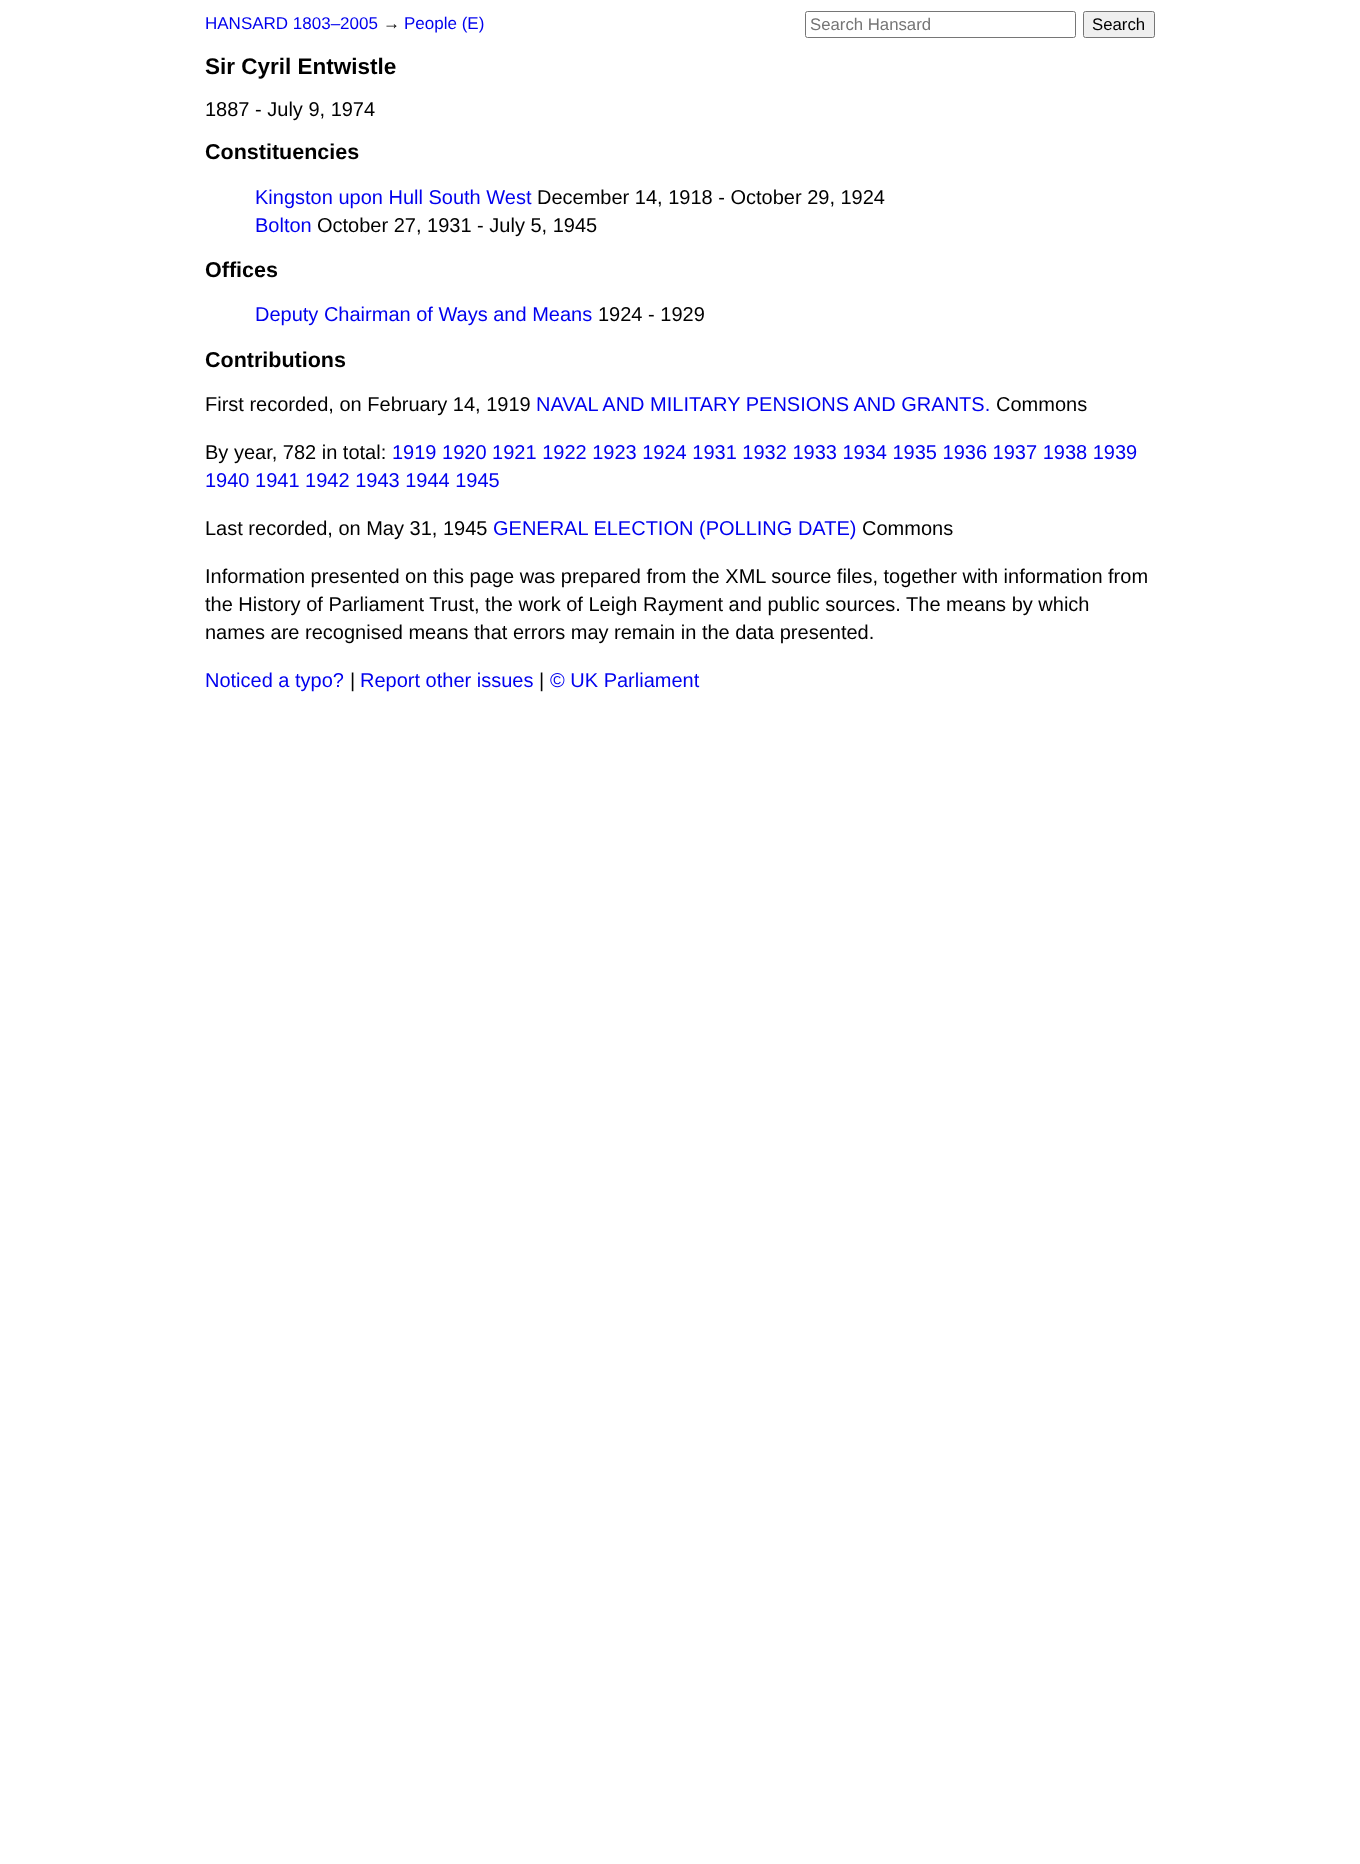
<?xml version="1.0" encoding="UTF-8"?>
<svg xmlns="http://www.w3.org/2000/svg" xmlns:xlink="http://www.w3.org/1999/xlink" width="1360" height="1864">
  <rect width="100%" height="100%" fill="#ffffff" />
  <rect x="805.5" y="11.5" width="270" height="26" rx="2" fill="none" stroke="#767676" />
  <rect x="1083.5" y="11.5" width="71" height="26" rx="2" fill="#efefef" stroke="#767676" />
  <text x="205" y="29" style="font-family: Liberation Sans; font-size: 17px; fill: #0000ee">HANSARD 1803–2005</text>
  <text x="383" y="29" style="font-family: Liberation Sans; font-size: 17px; fill: #000000">→</text>
  <text x="404" y="29" style="font-family: Liberation Sans; font-size: 17px; fill: #0000ee">People (E)</text>
  <text x="810" y="30" style="font-family: Liberation Sans; font-size: 16.75px; fill: #757575">Search Hansard</text>
  <text x="1092" y="30" style="font-family: Liberation Sans; font-size: 16.75px; fill: #000000">Search</text>
  <text x="205" y="74" style="font-family: Liberation Sans; font-size: 22.5px; font-weight: bold; fill: #000000">Sir Cyril Entwistle</text>
  <text x="205" y="116" style="font-family: Liberation Sans; font-size: 20px; fill: #000000">1887 - July 9, 1974</text>
  <text x="205" y="159" style="font-family: Liberation Sans; font-size: 21.5px; font-weight: bold; fill: #000000">Constituencies</text>
  <text x="255" y="204" style="font-family: Liberation Sans; font-size: 20px; fill: #0000ee">Kingston upon Hull South West</text>
  <text x="537" y="204" style="font-family: Liberation Sans; font-size: 20px; fill: #000000">December 14, 1918 - October 29, 1924</text>
  <text x="255" y="232" style="font-family: Liberation Sans; font-size: 20px; fill: #0000ee">Bolton</text>
  <text x="317" y="232" style="font-family: Liberation Sans; font-size: 20px; fill: #000000">October 27, 1931 - July 5, 1945</text>
  <text x="205" y="277" style="font-family: Liberation Sans; font-size: 21.5px; font-weight: bold; fill: #000000">Offices</text>
  <text x="255" y="321" style="font-family: Liberation Sans; font-size: 20px; fill: #0000ee">Deputy Chairman of Ways and Means</text>
  <text x="598" y="321" style="font-family: Liberation Sans; font-size: 20px; fill: #000000">1924 - 1929</text>
  <text x="205" y="367" style="font-family: Liberation Sans; font-size: 21.5px; font-weight: bold; fill: #000000">Contributions</text>
  <text x="205" y="411" style="font-family: Liberation Sans; font-size: 20px; fill: #000000">First recorded, on February 14, 1919</text>
  <text x="536" y="411" style="font-family: Liberation Sans; font-size: 20px; fill: #0000ee">NAVAL AND MILITARY PENSIONS AND GRANTS.</text>
  <text x="996" y="411" style="font-family: Liberation Sans; font-size: 20px; fill: #000000">Commons</text>
  <text x="205" y="459" style="font-family: Liberation Sans; font-size: 20px; fill: #000000">By year, 782 in total:</text>
  <text x="392" y="459" style="font-family: Liberation Sans; font-size: 20px; fill: #0000ee">1919 1920 1921 1922 1923 1924 1931 1932 1933 1934 1935 1936 1937 1938 1939</text>
  <text x="205" y="487" style="font-family: Liberation Sans; font-size: 20px; fill: #0000ee">1940 1941 1942 1943 1944 1945</text>
  <text x="205" y="535" style="font-family: Liberation Sans; font-size: 20px; fill: #000000">Last recorded, on May 31, 1945</text>
  <text x="493" y="535" style="font-family: Liberation Sans; font-size: 20px; fill: #0000ee">GENERAL ELECTION (POLLING DATE)</text>
  <text x="862" y="535" style="font-family: Liberation Sans; font-size: 20px; fill: #000000">Commons</text>
  <text x="205" y="583" style="font-family: Liberation Sans; font-size: 20px; fill: #000000">Information presented on this page was prepared from the XML source files, together with information from</text>
  <text x="205" y="611" style="font-family: Liberation Sans; font-size: 20px; fill: #000000">the History of Parliament Trust, the work of Leigh Rayment and public sources. The means by which</text>
  <text x="205" y="639" style="font-family: Liberation Sans; font-size: 20px; fill: #000000">names are recognised means that errors may remain in the data presented.</text>
  <text x="205" y="687" style="font-family: Liberation Sans; font-size: 20px; fill: #0000ee">Noticed a typo?</text>
  <text x="350" y="687" style="font-family: Liberation Sans; font-size: 20px; fill: #000000">|</text>
  <text x="360" y="687" style="font-family: Liberation Sans; font-size: 20px; fill: #0000ee">Report other issues</text>
  <text x="539" y="687" style="font-family: Liberation Sans; font-size: 20px; fill: #000000">|</text>
  <text x="550" y="687" style="font-family: Liberation Sans; font-size: 20px; fill: #0000ee">© UK Parliament</text>
</svg>
